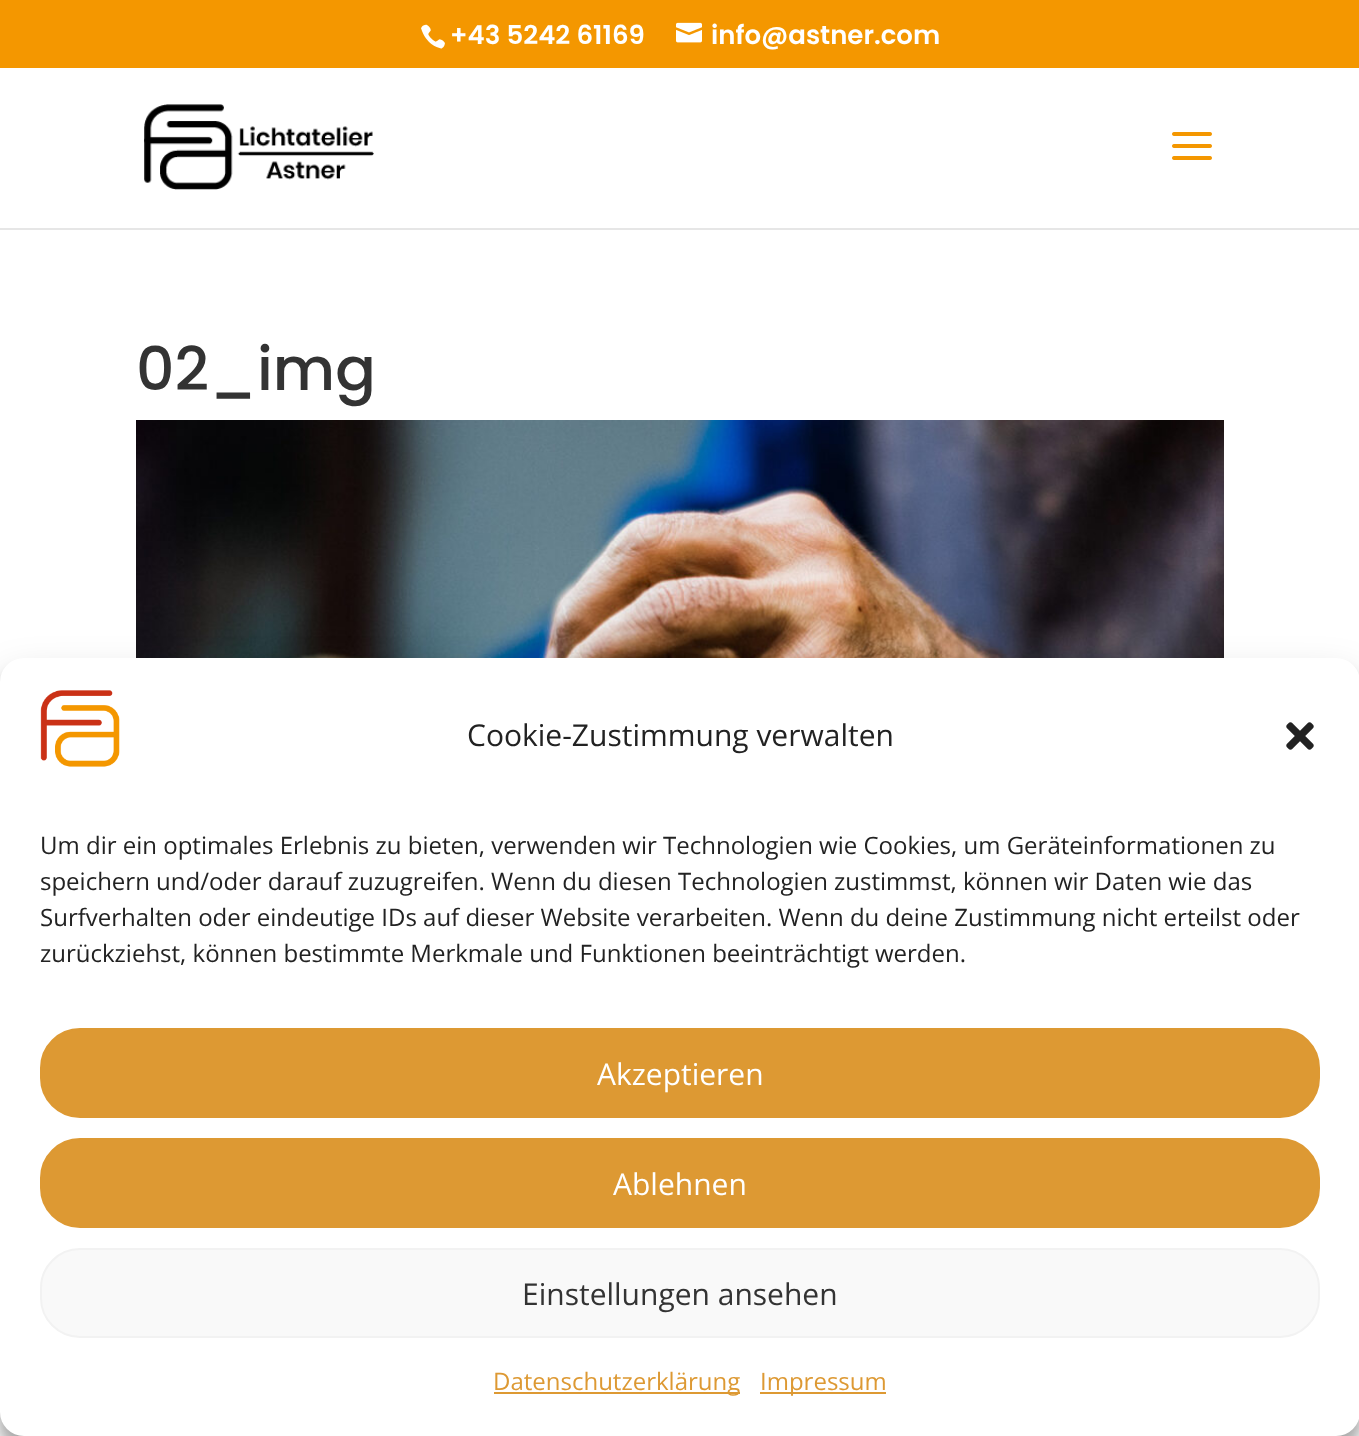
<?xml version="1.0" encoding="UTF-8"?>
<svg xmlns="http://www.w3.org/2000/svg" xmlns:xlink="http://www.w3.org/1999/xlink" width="1359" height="1436">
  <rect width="100%" height="100%" fill="#ffffff" />
  <rect width="1359" height="68" fill="#f49700" />
  <image x="421" y="24" width="24" height="25" xlink:href="image1.png" />
  <image x="676" y="22" width="26" height="21" xlink:href="image2.png" />
  <rect y="228" width="1359" height="2" fill="#e6e6e6" />
  <image x="144" y="104" width="230" height="86" xlink:href="image3.png" />
  <image x="1172" y="132" width="40" height="28" xlink:href="image4.png" />
  <image x="136" y="420" width="1088" height="238" xlink:href="image5.png" />
  <rect y="670" width="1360" height="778" rx="24" fill="#000000" fill-opacity="0.23" filter="blur(6px)" />
  <rect y="678" width="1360" height="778" rx="24" fill="#000000" fill-opacity="0.19" filter="blur(20px)" />
  <rect y="658" width="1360" height="778" rx="24" fill="#ffffff" />
  <image x="40" y="690" width="80" height="77" xlink:href="image6.png" />
  <image x="1286" y="722" width="28" height="28" xlink:href="image7.png" />
  <rect x="41" y="1029" width="1278" height="88" rx="39" fill="#dd9933" stroke="#dd9933" stroke-width="2" />
  <rect x="41" y="1139" width="1278" height="88" rx="39" fill="#dd9933" stroke="#dd9933" stroke-width="2" />
  <rect x="41" y="1249" width="1278" height="88" rx="39" fill="#f9f9f9" stroke="#f2f2f2" stroke-width="2" />
  <rect x="494" y="1392" width="246" height="2" fill="#dd9933" />
  <rect x="760" y="1392" width="126" height="2" fill="#dd9933" />
  <text x="450" y="44" style="font-family: Poppins; font-size: 26px; font-weight: 600; fill: #ffffff">+43 5242 61169</text>
  <text x="711" y="44" style="font-family: Poppins; font-size: 26px; font-weight: 600; fill: #ffffff">info@astner.com</text>
  <text x="136" y="390" style="font-family: Poppins; font-size: 60px; font-weight: 500; fill: #333333">02_img</text>
  <text x="467" y="746" style="font-family: Open Sans; font-size: 30px; fill: #222222">Cookie-Zustimmung verwalten</text>
  <text x="40" y="854" style="font-family: Open Sans; font-size: 24px; fill: #222222">Um dir ein optimales Erlebnis zu bieten, verwenden wir Technologien wie Cookies, um Geräteinformationen zu</text>
  <text x="40" y="890" style="font-family: Open Sans; font-size: 24px; fill: #222222">speichern und/oder darauf zuzugreifen. Wenn du diesen Technologien zustimmst, können wir Daten wie das</text>
  <text x="40" y="926" style="font-family: Open Sans; font-size: 24px; fill: #222222">Surfverhalten oder eindeutige IDs auf dieser Website verarbeiten. Wenn du deine Zustimmung nicht erteilst oder</text>
  <text x="40" y="962" style="font-family: Open Sans; font-size: 24px; fill: #222222">zurückziehst, können bestimmte Merkmale und Funktionen beeinträchtigt werden.</text>
  <text x="597" y="1085" style="font-family: Open Sans; font-size: 30px; fill: #ffffff">Akzeptieren</text>
  <text x="613" y="1195" style="font-family: Open Sans; font-size: 30px; fill: #ffffff">Ablehnen</text>
  <text x="522" y="1305" style="font-family: Open Sans; font-size: 30px; fill: #333333">Einstellungen ansehen</text>
  <text x="493" y="1390" style="font-family: Open Sans; font-size: 24px; fill: #dd9933">Datenschutzerklärung</text>
  <text x="760" y="1390" style="font-family: Open Sans; font-size: 24px; fill: #dd9933">Impressum</text>
</svg>
